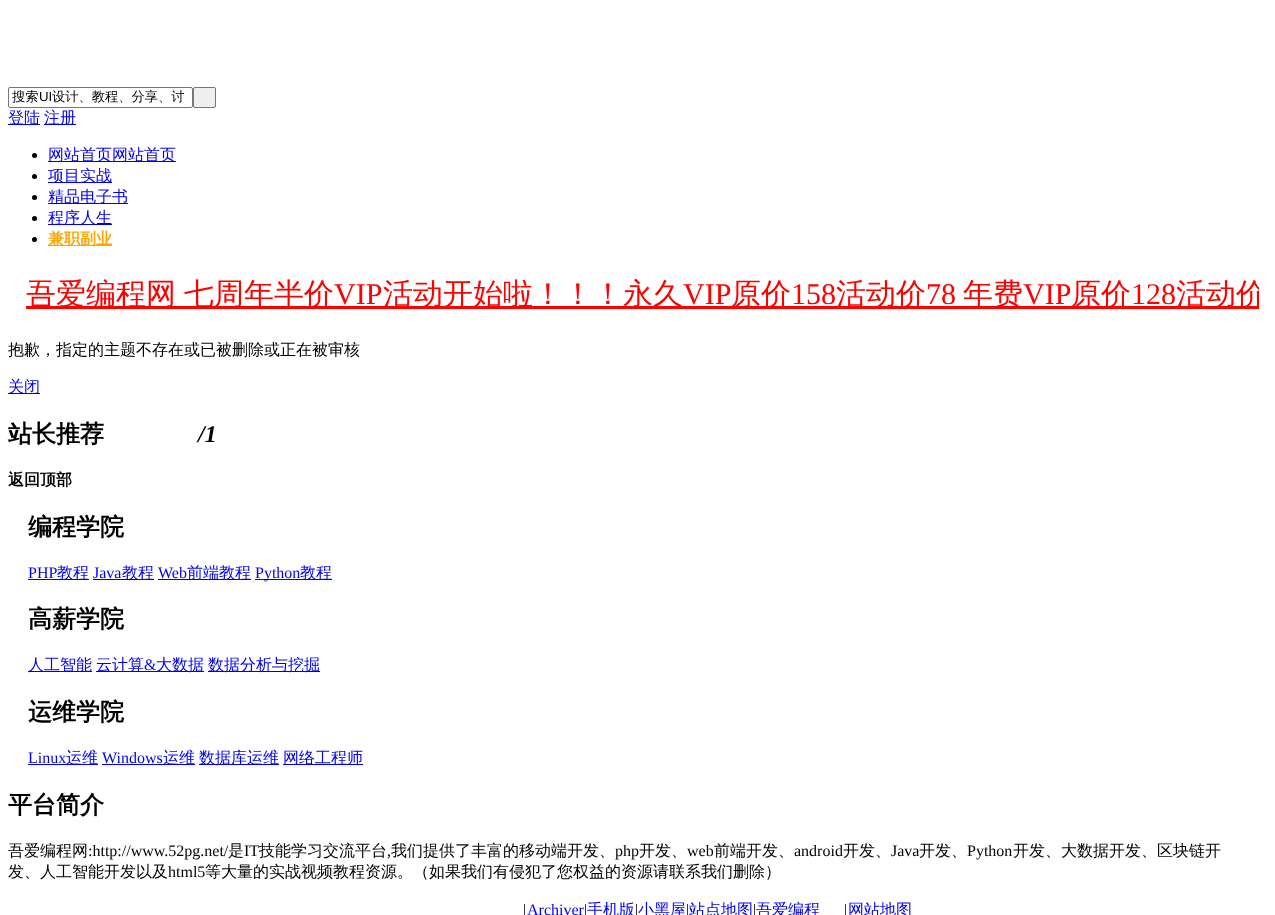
<?xml version="1.0" encoding="UTF-8"?>
<svg xmlns="http://www.w3.org/2000/svg" xmlns:xlink="http://www.w3.org/1999/xlink" width="1275" height="915">
  <defs>
    <clipPath id="clip1"><rect x="16" y="274" width="1243" height="41" /></clipPath>
  </defs>
  <rect width="100%" height="100%" fill="#ffffff" />
  <rect x="8.5" y="87.5" width="184" height="20" rx="1.5" fill="none" stroke="#767676" />
  <rect x="193.5" y="87.5" width="22" height="20" rx="1.5" fill="#efefef" stroke="#767676" />
  <rect x="8" y="124" width="32" height="1" fill="#0000ee" />
  <rect x="44" y="124" width="32" height="1" fill="#0000ee" />
  <circle cx="34.5" cy="155.5" r="2.5" fill="#000000" />
  <rect x="48" y="161" width="128" height="1" fill="#0000ee" />
  <circle cx="34.5" cy="176.5" r="2.5" fill="#000000" />
  <rect x="48" y="182" width="64" height="1" fill="#0000ee" />
  <circle cx="34.5" cy="197.5" r="2.5" fill="#000000" />
  <rect x="48" y="203" width="80" height="1" fill="#0000ee" />
  <circle cx="34.5" cy="218.5" r="2.5" fill="#000000" />
  <rect x="48" y="224" width="64" height="1" fill="#0000ee" />
  <circle cx="34.5" cy="239.5" r="2.5" fill="#000000" />
  <rect x="48" y="245" width="64" height="1" fill="#ffa500" />
  <rect x="26" y="306" width="1233" height="3" fill="#ff0000" />
  <rect x="8" y="393" width="32" height="1" fill="#0000ee" />
  <rect x="28" y="579" width="61" height="1" fill="#0000ee" />
  <rect x="93" y="579" width="61" height="1" fill="#0000ee" />
  <rect x="158" y="579" width="93" height="1" fill="#0000ee" />
  <rect x="255" y="579" width="77" height="1" fill="#0000ee" />
  <rect x="28" y="671" width="64" height="1" fill="#0000ee" />
  <rect x="96" y="671" width="108" height="1" fill="#0000ee" />
  <rect x="208" y="671" width="112" height="1" fill="#0000ee" />
  <rect x="28" y="764" width="70" height="1" fill="#0000ee" />
  <rect x="102" y="764" width="93" height="1" fill="#0000ee" />
  <rect x="199" y="764" width="80" height="1" fill="#0000ee" />
  <rect x="283" y="764" width="80" height="1" fill="#0000ee" />
  <text x="12" y="101" style="font-family: WenQuanYi Zen Hei; font-size: 13.25px; font-weight: 500; fill: #000000">搜索</text>
  <text x="39" y="101" style="font-family: Liberation Sans; font-size: 13.25px; fill: #000000">UI</text>
  <text x="52" y="101" style="font-family: WenQuanYi Zen Hei; font-size: 13.25px; font-weight: 500; fill: #000000">设计、教程、分享、讨</text>
  <text x="8" y="123" style="font-family: WenQuanYi Zen Hei; font-size: 16px; font-weight: 500; fill: #0000ee">登陆</text>
  <text x="44" y="123" style="font-family: WenQuanYi Zen Hei; font-size: 16px; font-weight: 500; fill: #0000ee">注册</text>
  <text x="48" y="160" style="font-family: WenQuanYi Zen Hei; font-size: 16px; font-weight: 500; fill: #0000ee">网站首页网站首页</text>
  <text x="48" y="181" style="font-family: WenQuanYi Zen Hei; font-size: 16px; font-weight: 500; fill: #0000ee">项目实战</text>
  <text x="48" y="202" style="font-family: WenQuanYi Zen Hei; font-size: 16px; font-weight: 500; fill: #0000ee">精品电子书</text>
  <text x="48" y="223" style="font-family: WenQuanYi Zen Hei; font-size: 16px; font-weight: 500; fill: #0000ee">程序人生</text>
  <text x="48" y="244" style="font-family: WenQuanYi Zen Hei; font-size: 16px; font-weight: bold; fill: #ffa500">兼职副业</text>
  <text x="26" y="304" word-spacing="-1" style="font-family: WenQuanYi Zen Hei; font-size: 30px; font-weight: 500; fill: #ff0000">吾爱编程网 七周年半价</text>
  <text x="334" y="304" style="font-family: Liberation Serif; font-size: 30px; fill: #ff0000">VIP</text>
  <text x="383" y="304" style="font-family: WenQuanYi Zen Hei; font-size: 30px; font-weight: 500; fill: #ff0000">活动开始啦！！！永久</text>
  <text x="683" y="304" style="font-family: Liberation Serif; font-size: 30px; fill: #ff0000">VIP</text>
  <text x="731" y="304" style="font-family: WenQuanYi Zen Hei; font-size: 30px; font-weight: 500; fill: #ff0000">原价</text>
  <text x="791" y="304" style="font-family: Liberation Serif; font-size: 30px; fill: #ff0000">158</text>
  <text x="836" y="304" style="font-family: WenQuanYi Zen Hei; font-size: 30px; font-weight: 500; fill: #ff0000">活动价</text>
  <text x="926" y="304" style="font-family: Liberation Serif; font-size: 30px; fill: #ff0000">78</text>
  <text x="963" y="304" style="font-family: WenQuanYi Zen Hei; font-size: 30px; font-weight: 500; fill: #ff0000">年费</text>
  <text x="1023" y="304" style="font-family: Liberation Serif; font-size: 30px; fill: #ff0000">VIP</text>
  <text x="1071" y="304" style="font-family: WenQuanYi Zen Hei; font-size: 30px; font-weight: 500; fill: #ff0000">原价</text>
  <text x="1131" y="304" style="font-family: Liberation Serif; font-size: 30px; fill: #ff0000">128</text>
  <g clip-path="url(#clip1)">
    <text x="1176" y="304" style="font-family: WenQuanYi Zen Hei; font-size: 30px; font-weight: 500; fill: #ff0000">活动价</text>
  </g>
  <text x="8" y="355" style="font-family: WenQuanYi Zen Hei; font-size: 16px; font-weight: 500; fill: #000000">抱歉，指定的主题不存在或已被删除或正在被审核</text>
  <text x="8" y="392" style="font-family: WenQuanYi Zen Hei; font-size: 16px; font-weight: 500; fill: #0000ee">关闭</text>
  <text x="8" y="442" style="font-family: WenQuanYi Zen Hei; font-size: 24px; font-weight: bold; fill: #000000">站长推荐</text>
  <text x="198" y="442" style="font-family: Liberation Serif; font-size: 24px; font-weight: bold; font-style: italic; fill: #000000">/1</text>
  <text x="8" y="485" style="font-family: WenQuanYi Zen Hei; font-size: 16px; font-weight: bold; fill: #000000">返回顶部</text>
  <text x="28" y="535" style="font-family: WenQuanYi Zen Hei; font-size: 24px; font-weight: bold; fill: #000000">编程学院</text>
  <text x="28" y="578" style="font-family: Liberation Serif; font-size: 16px; fill: #0000ee">PHP</text>
  <text x="57" y="578" style="font-family: WenQuanYi Zen Hei; font-size: 16px; font-weight: 500; fill: #0000ee">教程</text>
  <text x="93" y="578" style="font-family: Liberation Serif; font-size: 16px; fill: #0000ee">Java</text>
  <text x="122" y="578" style="font-family: WenQuanYi Zen Hei; font-size: 16px; font-weight: 500; fill: #0000ee">教程</text>
  <text x="158" y="578" style="font-family: Liberation Serif; font-size: 16px; fill: #0000ee">Web</text>
  <text x="187" y="578" style="font-family: WenQuanYi Zen Hei; font-size: 16px; font-weight: 500; fill: #0000ee">前端教程</text>
  <text x="255" y="578" style="font-family: Liberation Serif; font-size: 16px; fill: #0000ee">Python</text>
  <text x="300" y="578" style="font-family: WenQuanYi Zen Hei; font-size: 16px; font-weight: 500; fill: #0000ee">教程</text>
  <text x="28" y="627" style="font-family: WenQuanYi Zen Hei; font-size: 24px; font-weight: bold; fill: #000000">高薪学院</text>
  <text x="28" y="670" style="font-family: WenQuanYi Zen Hei; font-size: 16px; font-weight: 500; fill: #0000ee">人工智能</text>
  <text x="96" y="670" style="font-family: WenQuanYi Zen Hei; font-size: 16px; font-weight: 500; fill: #0000ee">云计算</text>
  <text x="144" y="670" style="font-family: Liberation Serif; font-size: 16px; fill: #0000ee">&amp;</text>
  <text x="156" y="670" style="font-family: WenQuanYi Zen Hei; font-size: 16px; font-weight: 500; fill: #0000ee">大数据</text>
  <text x="208" y="670" style="font-family: WenQuanYi Zen Hei; font-size: 16px; font-weight: 500; fill: #0000ee">数据分析与挖掘</text>
  <text x="28" y="720" style="font-family: WenQuanYi Zen Hei; font-size: 24px; font-weight: bold; fill: #000000">运维学院</text>
  <text x="28" y="763" style="font-family: Liberation Serif; font-size: 16px; fill: #0000ee">Linux</text>
  <text x="66" y="763" style="font-family: WenQuanYi Zen Hei; font-size: 16px; font-weight: 500; fill: #0000ee">运维</text>
  <text x="102" y="763" style="font-family: Liberation Serif; font-size: 16px; fill: #0000ee">Windows</text>
  <text x="163" y="763" style="font-family: WenQuanYi Zen Hei; font-size: 16px; font-weight: 500; fill: #0000ee">运维</text>
  <text x="199" y="763" style="font-family: WenQuanYi Zen Hei; font-size: 16px; font-weight: 500; fill: #0000ee">数据库运维</text>
  <text x="283" y="763" style="font-family: WenQuanYi Zen Hei; font-size: 16px; font-weight: 500; fill: #0000ee">网络工程师</text>
  <text x="8" y="813" style="font-family: WenQuanYi Zen Hei; font-size: 24px; font-weight: bold; fill: #000000">平台简介</text>
  <text x="8" y="856" style="font-family: WenQuanYi Zen Hei; font-size: 16px; font-weight: 500; fill: #000000">吾爱编程网</text>
  <text x="88" y="856" style="font-family: Liberation Serif; font-size: 16px; fill: #000000">:http://www.52pg.net/</text>
  <text x="228" y="856" style="font-family: WenQuanYi Zen Hei; font-size: 16px; font-weight: 500; fill: #000000">是</text>
  <text x="244" y="856" style="font-family: Liberation Serif; font-size: 16px; fill: #000000">IT</text>
  <text x="259" y="856" style="font-family: WenQuanYi Zen Hei; font-size: 16px; font-weight: 500; fill: #000000">技能学习交流平台</text>
  <text x="387" y="856" style="font-family: Liberation Serif; font-size: 16px; fill: #000000">,</text>
  <text x="391" y="856" style="font-family: WenQuanYi Zen Hei; font-size: 16px; font-weight: 500; fill: #000000">我们提供了丰富的移动端开发、</text>
  <text x="615" y="856" style="font-family: Liberation Serif; font-size: 16px; fill: #000000">php</text>
  <text x="639" y="856" style="font-family: WenQuanYi Zen Hei; font-size: 16px; font-weight: 500; fill: #000000">开发、</text>
  <text x="687" y="856" style="font-family: Liberation Serif; font-size: 16px; fill: #000000">web</text>
  <text x="714" y="856" style="font-family: WenQuanYi Zen Hei; font-size: 16px; font-weight: 500; fill: #000000">前端开发、</text>
  <text x="794" y="856" style="font-family: Liberation Serif; font-size: 16px; fill: #000000">android</text>
  <text x="843" y="856" style="font-family: WenQuanYi Zen Hei; font-size: 16px; font-weight: 500; fill: #000000">开发、</text>
  <text x="891" y="856" style="font-family: Liberation Serif; font-size: 16px; fill: #000000">Java</text>
  <text x="919" y="856" style="font-family: WenQuanYi Zen Hei; font-size: 16px; font-weight: 500; fill: #000000">开发、</text>
  <text x="967" y="856" style="font-family: Liberation Serif; font-size: 16px; fill: #000000">Python</text>
  <text x="1013" y="856" style="font-family: WenQuanYi Zen Hei; font-size: 16px; font-weight: 500; fill: #000000">开发、大数据开发、区块链开</text>
  <text x="8" y="877" style="font-family: WenQuanYi Zen Hei; font-size: 16px; font-weight: 500; fill: #000000">发、人工智能开发以及</text>
  <text x="168" y="877" style="font-family: Liberation Serif; font-size: 16px; fill: #000000">html5</text>
  <text x="205" y="877" style="font-family: WenQuanYi Zen Hei; font-size: 16px; font-weight: 500; fill: #000000">等大量的实战视频教程资源。（如果我们有侵犯了您权益的资源请联系我们删除）</text>
  <text x="523" y="915" style="font-family: Liberation Serif; font-size: 16px; fill: #000000">|</text>
  <text x="527" y="915" style="font-family: Liberation Serif; font-size: 16px; fill: #0000ee">Archiver</text>
  <text x="584" y="915" style="font-family: Liberation Serif; font-size: 16px; fill: #000000">|</text>
  <text x="587" y="915" style="font-family: WenQuanYi Zen Hei; font-size: 16px; font-weight: 500; fill: #0000ee">手机版</text>
  <text x="635" y="915" style="font-family: Liberation Serif; font-size: 16px; fill: #000000">|</text>
  <text x="638" y="915" style="font-family: WenQuanYi Zen Hei; font-size: 16px; font-weight: 500; fill: #0000ee">小黑屋</text>
  <text x="686" y="915" style="font-family: Liberation Serif; font-size: 16px; fill: #000000">|</text>
  <text x="689" y="915" style="font-family: WenQuanYi Zen Hei; font-size: 16px; font-weight: 500; fill: #0000ee">站点地图</text>
  <text x="753" y="915" style="font-family: Liberation Serif; font-size: 16px; fill: #000000">|</text>
  <text x="756" y="915" style="font-family: WenQuanYi Zen Hei; font-size: 16px; font-weight: 500; fill: #0000ee">吾爱编程</text>
  <text x="844" y="915" style="font-family: Liberation Serif; font-size: 16px; fill: #000000">|</text>
  <text x="848" y="915" style="font-family: WenQuanYi Zen Hei; font-size: 16px; font-weight: 500; fill: #0000ee">网站地图</text>
</svg>
